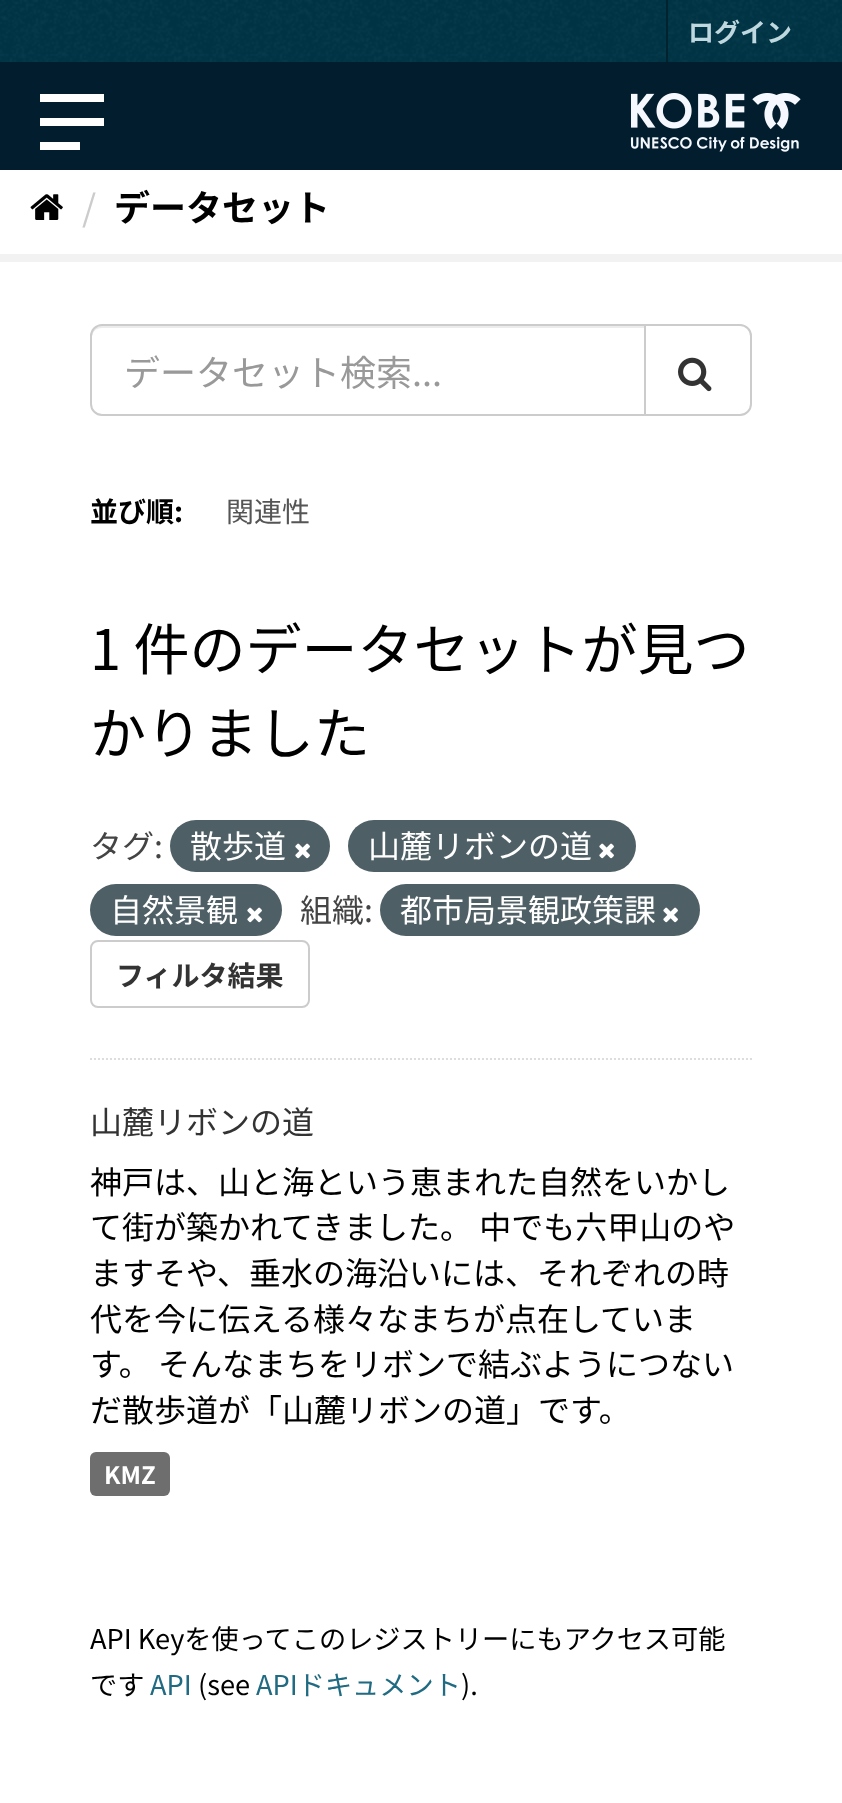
<?xml version="1.0" encoding="UTF-8"?>
<svg xmlns="http://www.w3.org/2000/svg" xmlns:xlink="http://www.w3.org/1999/xlink" width="842" height="1803">
  <rect width="100%" height="100%" fill="#ffffff" />
  <rect width="842" height="62" fill="#003647" />
  <image x="0" y="0" width="842" height="62" xlink:href="image1.png" />
  <rect x="666" width="2" height="62" fill="#00232e" />
  <rect y="62" width="842" height="108" fill="#021d2e" />
  <rect x="40" y="94" width="64" height="8" fill="#ffffff" />
  <rect x="40" y="118" width="64" height="8" fill="#ffffff" />
  <rect x="40" y="142" width="40" height="8" fill="#ffffff" />
  <image x="630" y="93" width="171" height="59" xlink:href="image2.png" />
  <image x="30" y="194" width="33" height="26" xlink:href="image3.png" />
  <rect x="-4" y="258" width="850" height="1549" fill="none" stroke="#f2f2f2" stroke-width="8" />
  <path d="M 90 1059 h 662" fill="none" stroke="#dddddd" stroke-width="2" stroke-dasharray="2 2" />
  <path d="M 102 328 h 542 v -2 h -542 c -6 0 -10 4 -10 10 v 2 c 0 -6 4 -10 10 -10 z" fill="#ececec" />
  <path d="M 102 325 h 543 v 90 h -543 c -6 0 -11 -5 -11 -11 v -68 c 0 -6 5 -11 11 -11 z" fill="none" stroke="#cccccc" stroke-width="2" />
  <path d="M 645 325 h 95 c 6 0 11 5 11 11 v 68 c 0 6 -5 11 -11 11 h -95 z" fill="#ffffff" stroke="#cccccc" stroke-width="2" />
  <image x="678" y="357" width="34" height="35" xlink:href="image4.png" />
  <rect x="170" y="820" width="160" height="52" rx="26" fill="#4e5f65" />
  <image x="295" y="843" width="15" height="16" xlink:href="image5.png" />
  <rect x="348" y="820" width="288" height="52" rx="26" fill="#4e5f65" />
  <image x="599" y="843" width="15" height="16" xlink:href="image5.png" />
  <rect x="90" y="884" width="192" height="52" rx="26" fill="#4e5f65" />
  <image x="247" y="907" width="15" height="16" xlink:href="image5.png" />
  <rect x="380" y="884" width="320" height="52" rx="26" fill="#4e5f65" />
  <image x="663" y="907" width="15" height="16" xlink:href="image5.png" />
  <rect x="91" y="941" width="218" height="66" rx="7" fill="none" stroke="#cccccc" stroke-width="2" />
  <rect x="90" y="1452" width="80" height="44" rx="6" fill="#6e6e6e" />
  <text x="688" y="42" style="font-family: Noto Sans JP; font-size: 26px; font-weight: bold; fill: #bfd7de">ログイン</text>
  <text x="82" y="221" style="font-family: Noto Sans JP; font-size: 36px; fill: #cccccc">/</text>
  <text x="114" y="221" style="font-family: Noto Sans JP; font-size: 36px; font-weight: bold; fill: #000000">データセット</text>
  <text x="124" y="386" style="font-family: Noto Sans JP; font-size: 36px; fill: #999999">データセット検索...</text>
  <text x="90" y="522" style="font-family: Noto Sans JP; font-size: 28px; font-weight: bold; fill: #000000">並び順:</text>
  <text x="226" y="522" style="font-family: Noto Sans JP; font-size: 28px; fill: #555555">関連性</text>
  <text x="90" y="670" style="font-family: Noto Sans JP; font-size: 56px; fill: #000000">1 件のデータセットが見つ</text>
  <text x="90" y="754" style="font-family: Noto Sans JP; font-size: 56px; fill: #000000">かりました</text>
  <text x="90" y="858" style="font-family: Noto Sans JP; font-size: 32px; fill: #444444">タグ:</text>
  <text x="190" y="858" style="font-family: Noto Sans JP; font-size: 32px; fill: #ffffff">散歩道</text>
  <text x="368" y="858" style="font-family: Noto Sans JP; font-size: 32px; fill: #ffffff">山麓リボンの道</text>
  <text x="110" y="922" style="font-family: Noto Sans JP; font-size: 32px; fill: #ffffff">自然景観</text>
  <text x="300" y="922" style="font-family: Noto Sans JP; font-size: 32px; fill: #444444">組織:</text>
  <text x="400" y="922" style="font-family: Noto Sans JP; font-size: 32px; fill: #ffffff">都市局景観政策課</text>
  <text x="116" y="986" style="font-family: Noto Sans JP; font-size: 28px; font-weight: bold; fill: #333333">フィルタ結果</text>
  <text x="90" y="1134" style="font-family: Noto Sans JP; font-size: 32px; fill: #333333">山麓リボンの道</text>
  <text x="90" y="1194" style="font-family: Noto Sans JP; font-size: 32px; fill: #000000">神戸は、山と海という恵まれた自然をいかし</text>
  <text x="90" y="1239" style="font-family: Noto Sans JP; font-size: 32px; fill: #000000">て街が築かれてきました。 中でも六甲山のや</text>
  <text x="90" y="1285" style="font-family: Noto Sans JP; font-size: 32px; fill: #000000">ますそや、垂水の海沿いには、それぞれの時</text>
  <text x="90" y="1331" style="font-family: Noto Sans JP; font-size: 32px; fill: #000000">代を今に伝える様々なまちが点在していま</text>
  <text x="90" y="1376" style="font-family: Noto Sans JP; font-size: 32px; fill: #000000">す。 そんなまちをリボンで結ぶようにつない</text>
  <text x="90" y="1422" style="font-family: Noto Sans JP; font-size: 32px; fill: #000000">だ散歩道が「山麓リボンの道」です。</text>
  <text x="104" y="1484" style="font-family: Noto Sans JP; font-size: 24px; font-weight: bold; fill: #ffffff">KMZ</text>
  <text x="90" y="1649" style="font-family: Noto Sans JP; font-size: 27.2px; fill: #000000">API Keyを使ってこのレジストリーにもアクセス可能</text>
  <text x="90" y="1695" style="font-family: Noto Sans JP; font-size: 27.2px; fill: #000000">です</text>
  <text x="150" y="1695" style="font-family: Noto Sans JP; font-size: 27.2px; fill: #206b82">API</text>
  <text x="198" y="1695" style="font-family: Noto Sans JP; font-size: 27.2px; fill: #000000">(see</text>
  <text x="256" y="1695" style="font-family: Noto Sans JP; font-size: 27.2px; fill: #206b82">APIドキュメント</text>
  <text x="461" y="1695" style="font-family: Noto Sans JP; font-size: 27.2px; fill: #000000">).</text>
</svg>
